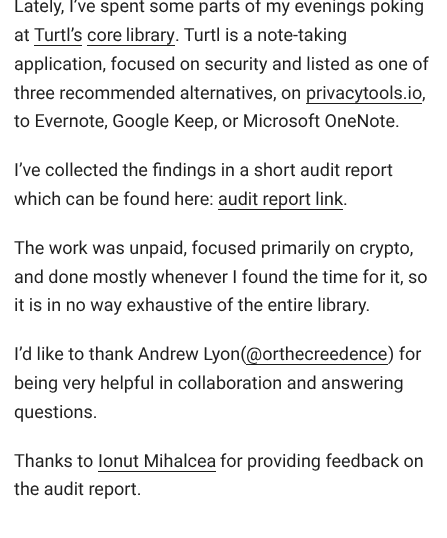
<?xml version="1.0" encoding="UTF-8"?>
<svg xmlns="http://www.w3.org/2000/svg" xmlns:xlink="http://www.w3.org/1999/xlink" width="447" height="538">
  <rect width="100%" height="100%" fill="#ffffff" />
  <rect x="34" y="45" width="48" height="1" fill="#1e1e1e" />
  <rect x="87" y="45" width="88" height="1" fill="#1e1e1e" />
  <rect x="306" y="103" width="116" height="1" fill="#1e1e1e" />
  <rect x="218" y="209" width="125" height="1" fill="#1e1e1e" />
  <rect x="98" y="471" width="118" height="1" fill="#1e1e1e" />
  <text x="14" y="12" style="font-family: Roboto; font-size: 18px; fill: #1f1f1f">Lately, I’ve spent some parts of my evenings poking</text>
  <text x="14" y="41" style="font-family: Roboto; font-size: 18px; fill: #1f1f1f">at</text>
  <text x="34" y="41" style="font-family: Roboto; font-size: 18px; fill: #1f1f1f">Turtl’s</text>
  <text x="87" y="41" word-spacing="-1" style="font-family: Roboto; font-size: 18px; fill: #1f1f1f">core library</text>
  <text x="175" y="41" style="font-family: Roboto; font-size: 18px; fill: #1f1f1f">. Turtl is a note-taking</text>
  <text x="14" y="70" style="font-family: Roboto; font-size: 18px; fill: #1f1f1f">application, focused on security and listed as one of</text>
  <text x="14" y="99" style="font-family: Roboto; font-size: 18px; fill: #1f1f1f">three recommended alternatives, on</text>
  <text x="306" y="99" style="font-family: Roboto; font-size: 18px; fill: #1f1f1f">privacytools.io</text>
  <text x="422" y="99" style="font-family: Roboto; font-size: 18px; fill: #1f1f1f">,</text>
  <text x="14" y="127" style="font-family: Roboto; font-size: 18px; fill: #1f1f1f">to Evernote, Google Keep, or Microsoft OneNote.</text>
  <text x="14" y="176" style="font-family: Roboto; font-size: 18px; fill: #1f1f1f">I’ve collected the findings in a short audit report</text>
  <text x="14" y="205" style="font-family: Roboto; font-size: 18px; fill: #1f1f1f">which can be found here:</text>
  <text x="218" y="205" style="font-family: Roboto; font-size: 18px; fill: #1f1f1f">audit report link</text>
  <text x="343" y="205" style="font-family: Roboto; font-size: 18px; fill: #1f1f1f">.</text>
  <text x="14" y="254" style="font-family: Roboto; font-size: 18px; fill: #1f1f1f">The work was unpaid, focused primarily on crypto,</text>
  <text x="14" y="283" style="font-family: Roboto; font-size: 18px; fill: #1f1f1f">and done mostly whenever I found the time for it, so</text>
  <text x="14" y="311" style="font-family: Roboto; font-size: 18px; fill: #1f1f1f">it is in no way exhaustive of the entire library.</text>
  <text x="14" y="360" style="font-family: Roboto; font-size: 18px; fill: #1f1f1f">I’d like to thank Andrew Lyon(</text>
  <text x="246" y="360" style="font-family: Roboto; font-size: 18px; fill: #1f1f1f">@orthecreedence</text>
  <rect x="246" y="364" width="142" height="1" fill="#1e1e1e" />
  <text x="388" y="360" style="font-family: Roboto; font-size: 18px; fill: #1f1f1f">) for</text>
  <text x="14" y="389" style="font-family: Roboto; font-size: 18px; fill: #1f1f1f">being very helpful in collaboration and answering</text>
  <text x="14" y="418" style="font-family: Roboto; font-size: 18px; fill: #1f1f1f">questions.</text>
  <text x="14" y="467" style="font-family: Roboto; font-size: 18px; fill: #1f1f1f">Thanks to</text>
  <text x="98" y="467" style="font-family: Roboto; font-size: 18px; fill: #1f1f1f">Ionut Mihalcea</text>
  <text x="220" y="467" style="font-family: Roboto; font-size: 18px; fill: #1f1f1f">for providing feedback on</text>
  <text x="14" y="495" style="font-family: Roboto; font-size: 18px; fill: #1f1f1f">the audit report.</text>
</svg>
